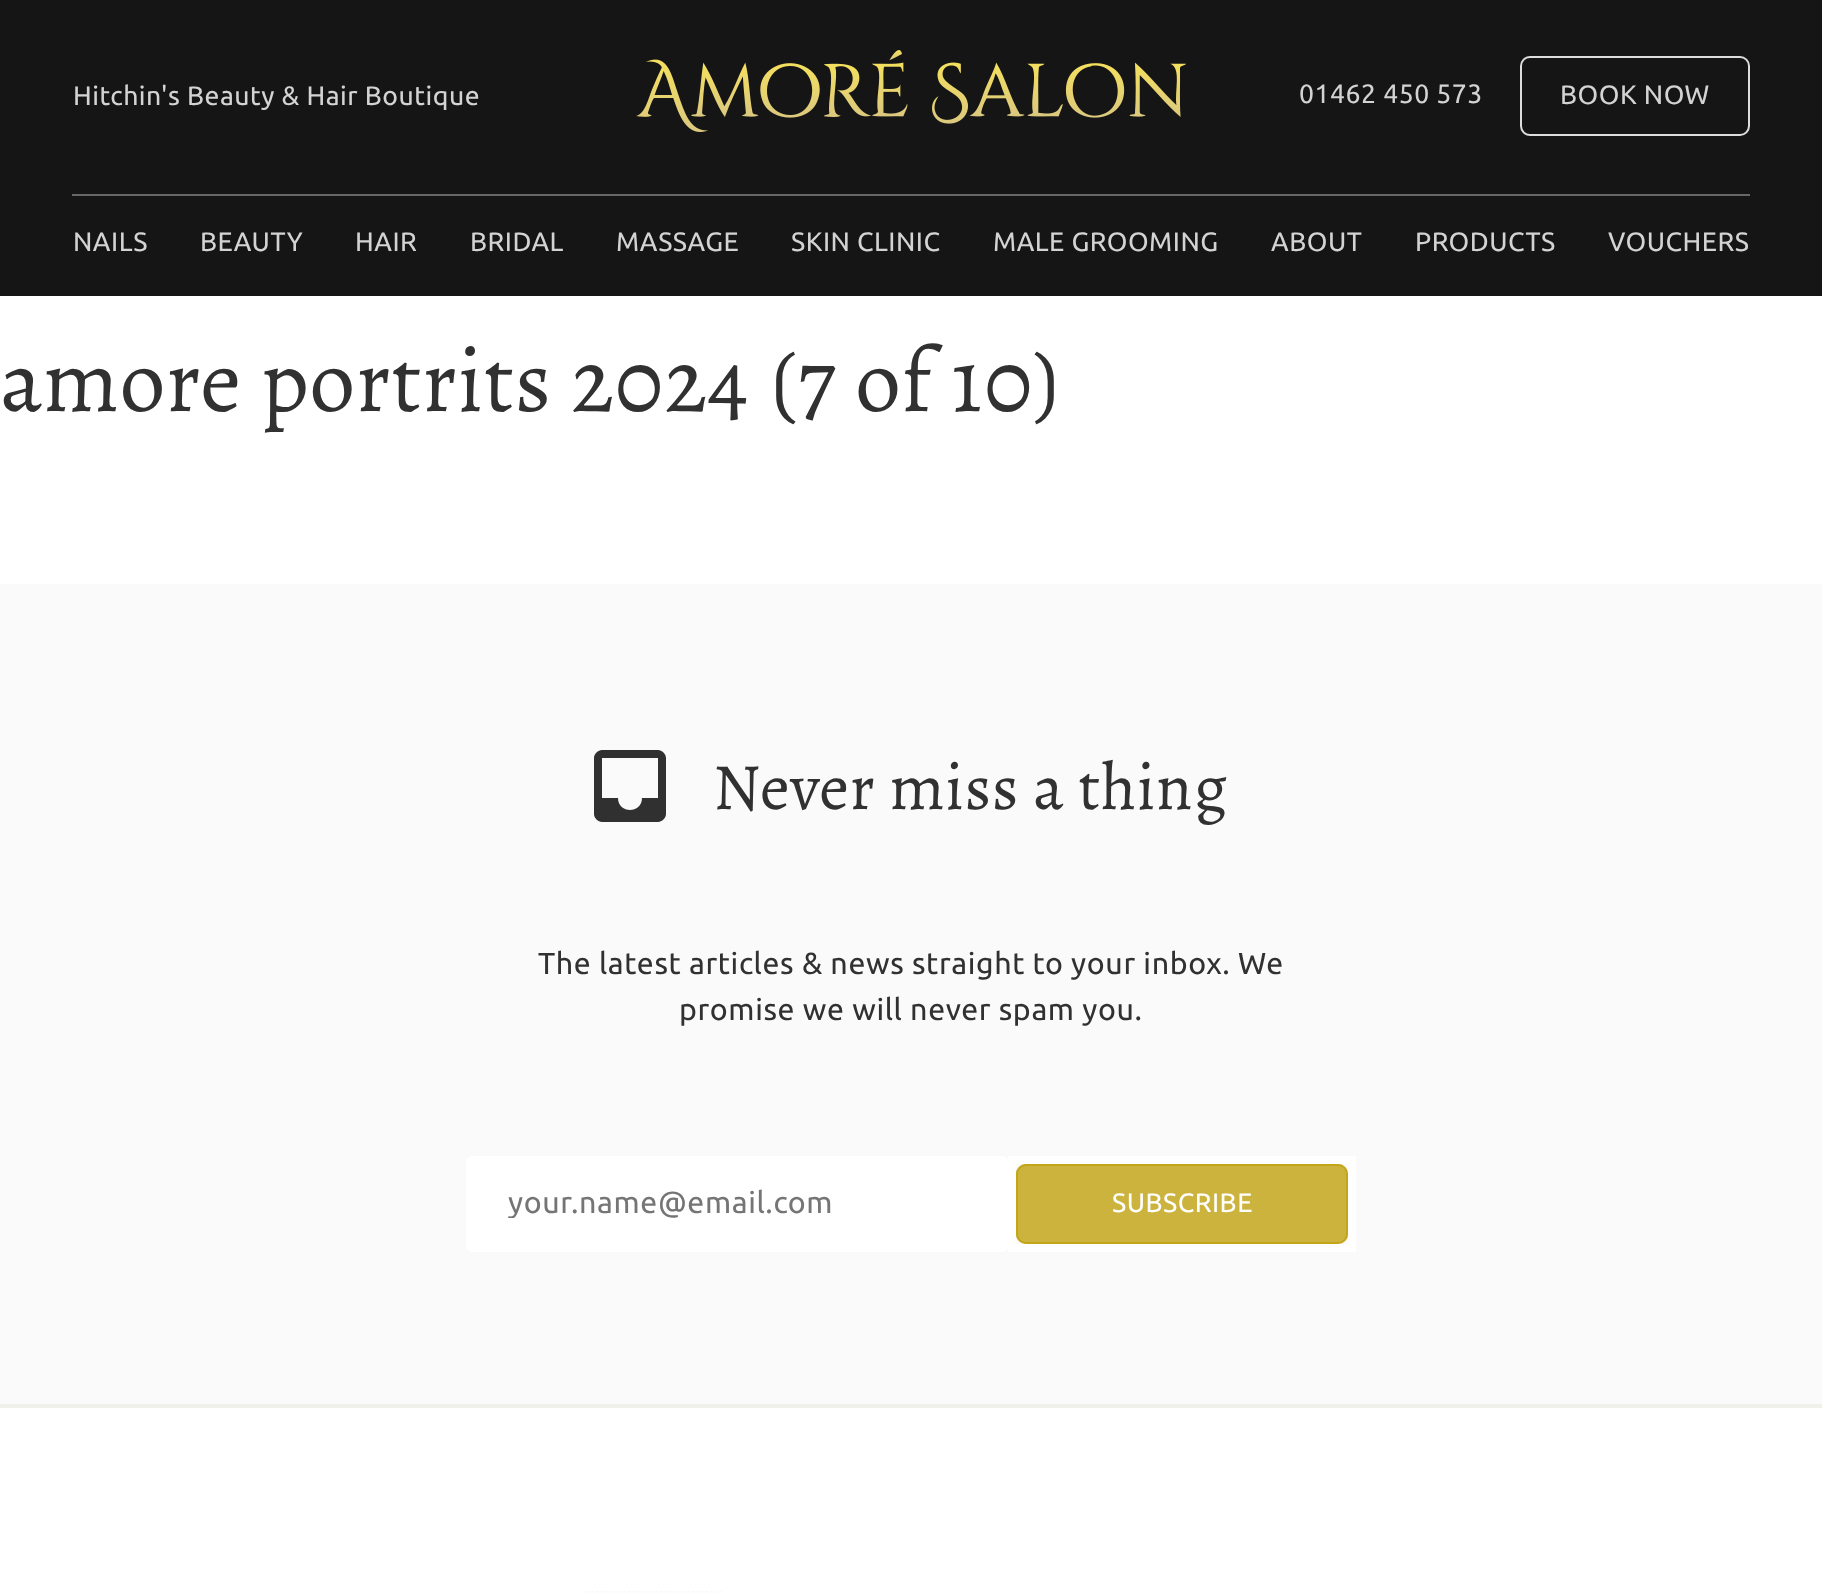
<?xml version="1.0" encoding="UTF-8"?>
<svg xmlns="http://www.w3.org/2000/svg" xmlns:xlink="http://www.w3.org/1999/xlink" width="1822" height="1594">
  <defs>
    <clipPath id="clip1"><rect x="508" y="1184" width="458" height="34" /></clipPath>
  </defs>
  <rect width="100%" height="100%" fill="#ffffff" />
  <rect width="1822" height="296" fill="#151515" />
  <rect x="72" y="194" width="1678" height="2" fill="#676767" />
  <image x="636" y="50" width="550" height="82" xlink:href="image1.png" />
  <rect x="1521" y="57" width="228" height="78" rx="9" fill="none" stroke="#dedcdc" stroke-width="2" />
  <rect y="584" width="1822" height="820" fill="#fafafa" />
  <path d="M 658 750 h -56 c -4 0 -8 4 -8 8 v 56 c 0 4 4 8 8 8 h 56 c 4 0 8 -4 8 -8 v -56 c 0 -4 -4 -8 -8 -8 z m 0 48 h -16 c 0 16 -24 16 -24 0 h -16 v -40 h 56 z" fill="#303030" fill-rule="evenodd" />
  <rect x="466" y="1156" width="542" height="96" rx="6" fill="#ffffff" />
  <rect x="1012" y="1160" width="340" height="88" fill="none" stroke="#ffffff" stroke-width="8" />
  <rect x="1016" y="1164" width="332" height="80" rx="10" fill="#ccb33d" />
  <rect x="1017" y="1165" width="330" height="78" rx="9" fill="none" stroke="#c0a10e" stroke-opacity="0.8" stroke-width="2" />
  <rect y="1404" width="1822" height="4" fill="#f0f1ea" />
  <image x="583" y="1591" width="140" height="2" xlink:href="image2.png" />
  <text x="73" y="105" style="font-family: Ubuntu; font-size: 26.6px; letter-spacing: 0.5px; fill: #d3d3d3">Hitchin's Beauty &amp; Hair Boutique</text>
  <text x="1299" y="103" style="font-family: Ubuntu; font-size: 26.6px; letter-spacing: 0.5px; fill: #d3d3d3">01462 450 573</text>
  <text x="1560" y="104" style="font-family: Ubuntu; font-size: 26.6px; letter-spacing: 0.5px; fill: #d3d3d3">BOOK NOW</text>
  <text x="73" y="251" style="font-family: Ubuntu; font-size: 26.6px; letter-spacing: 0.5px; fill: #d3d3d3">NAILS</text>
  <text x="200" y="251" style="font-family: Ubuntu; font-size: 26.6px; letter-spacing: 0.5px; fill: #d3d3d3">BEAUTY</text>
  <text x="355" y="251" style="font-family: Ubuntu; font-size: 26.6px; letter-spacing: 0.5px; fill: #d3d3d3">HAIR</text>
  <text x="470" y="251" style="font-family: Ubuntu; font-size: 26.6px; letter-spacing: 0.5px; fill: #d3d3d3">BRIDAL</text>
  <text x="616" y="251" style="font-family: Ubuntu; font-size: 26.6px; letter-spacing: 0.5px; fill: #d3d3d3">MASSAGE</text>
  <text x="791" y="251" style="font-family: Ubuntu; font-size: 26.6px; letter-spacing: 0.5px; fill: #d3d3d3">SKIN CLINIC</text>
  <text x="993" y="251" style="font-family: Ubuntu; font-size: 26.6px; letter-spacing: 0.5px; fill: #d3d3d3">MALE GROOMING</text>
  <text x="1271" y="251" style="font-family: Ubuntu; font-size: 26.6px; letter-spacing: 0.5px; fill: #d3d3d3">ABOUT</text>
  <text x="1415" y="251" style="font-family: Ubuntu; font-size: 26.6px; letter-spacing: 0.5px; fill: #d3d3d3">PRODUCTS</text>
  <text x="1608" y="251" style="font-family: Ubuntu; font-size: 26.6px; letter-spacing: 0.5px; fill: #d3d3d3">VOUCHERS</text>
  <text x="0" y="411" style="font-family: Alegreya; font-size: 91.25px; letter-spacing: 0.6px; fill: #313131">amore portrits 2024 (7 of 10)</text>
  <text x="713" y="809" style="font-family: Alegreya; font-size: 66.25px; letter-spacing: 0.6px; fill: #313131">Never miss a thing</text>
  <text x="538" y="974" style="font-family: Ubuntu; font-size: 30.4px; letter-spacing: 0.6px; fill: #313131">The latest articles &amp; news straight to your inbox. We</text>
  <text x="679" y="1020" style="font-family: Ubuntu; font-size: 30.4px; letter-spacing: 0.6px; fill: #313131">promise we will never spam you.</text>
  <g clip-path="url(#clip1)">
    <text x="508" y="1213" style="font-family: Ubuntu; font-size: 30.4px; letter-spacing: 0.6px; fill: #757575">your.name@email.com</text>
  </g>
  <text x="1112" y="1212" style="font-family: Ubuntu; font-size: 26.6px; letter-spacing: 0.5px; fill: #ffffff">SUBSCRIBE</text>
</svg>
